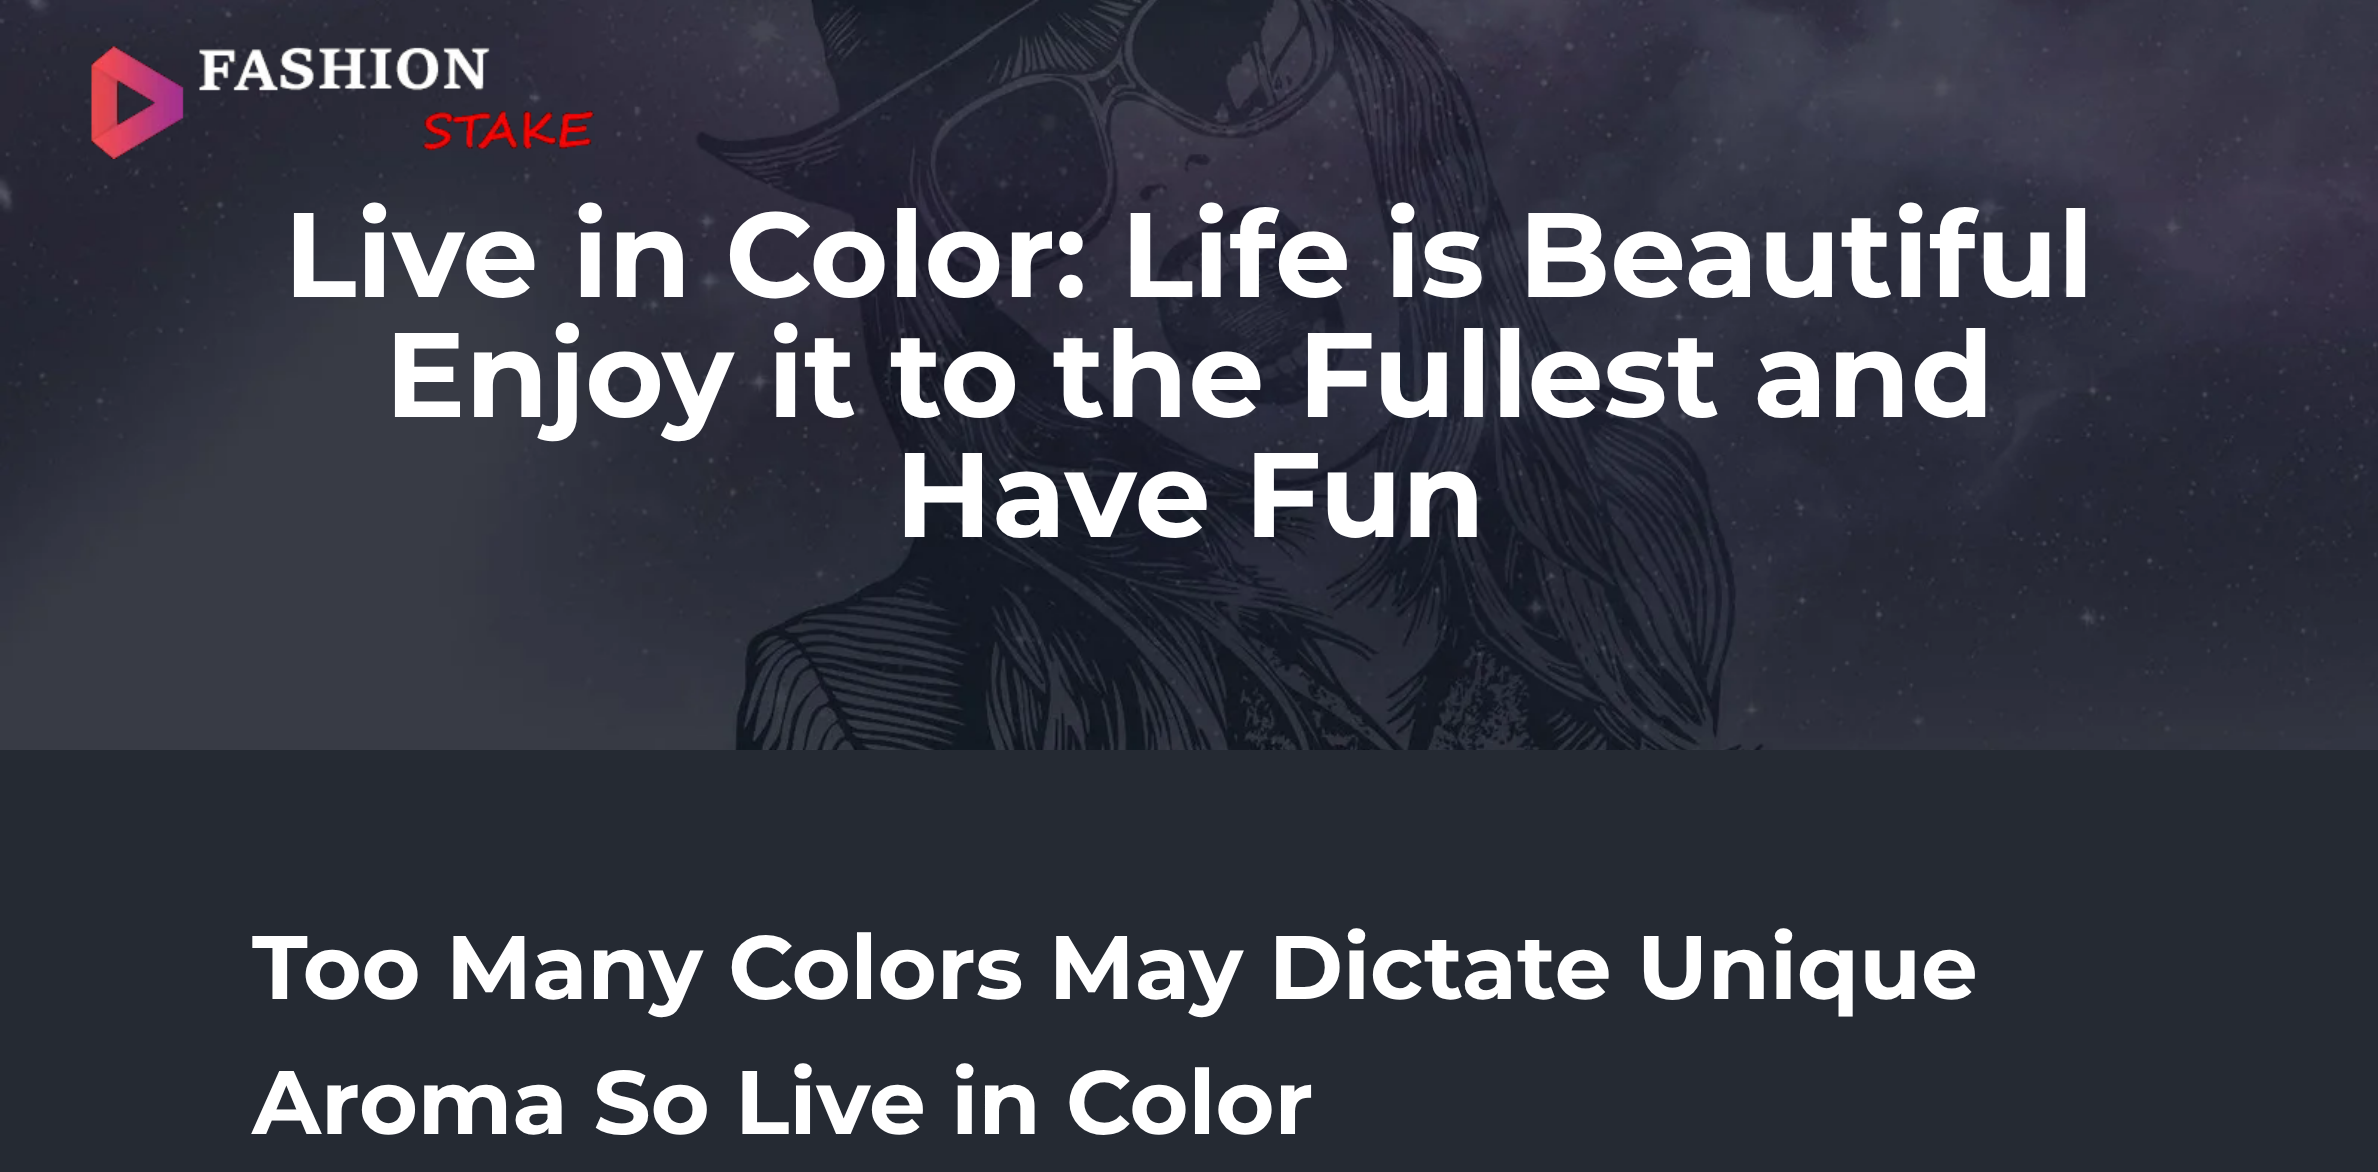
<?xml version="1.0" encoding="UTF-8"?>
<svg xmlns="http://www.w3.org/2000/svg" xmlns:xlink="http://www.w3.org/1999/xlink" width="2378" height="1172">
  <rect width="100%" height="100%" fill="#252a33" />
  <image x="0" y="0" width="2378" height="750" xlink:href="image2.png" />
  <image x="91" y="46" width="504" height="113" xlink:href="image1.png" />
  <text x="284" y="297" style="font-family: Montserrat; font-size: 120px; font-weight: bold; fill: #ffffff">Live in Color: Life is Beautiful</text>
  <text x="385" y="417" style="font-family: Montserrat; font-size: 120px; font-weight: bold; fill: #ffffff">Enjoy it to the Fullest and</text>
  <text x="895" y="537" style="font-family: Montserrat; font-size: 120px; font-weight: bold; fill: #ffffff">Have Fun</text>
  <text x="252" y="999" style="font-family: Montserrat; font-size: 90px; font-weight: bold; fill: #ffffff">Too Many Colors May Dictate Unique</text>
  <text x="252" y="1134" style="font-family: Montserrat; font-size: 90px; font-weight: bold; fill: #ffffff">Aroma So Live in Color</text>
</svg>
